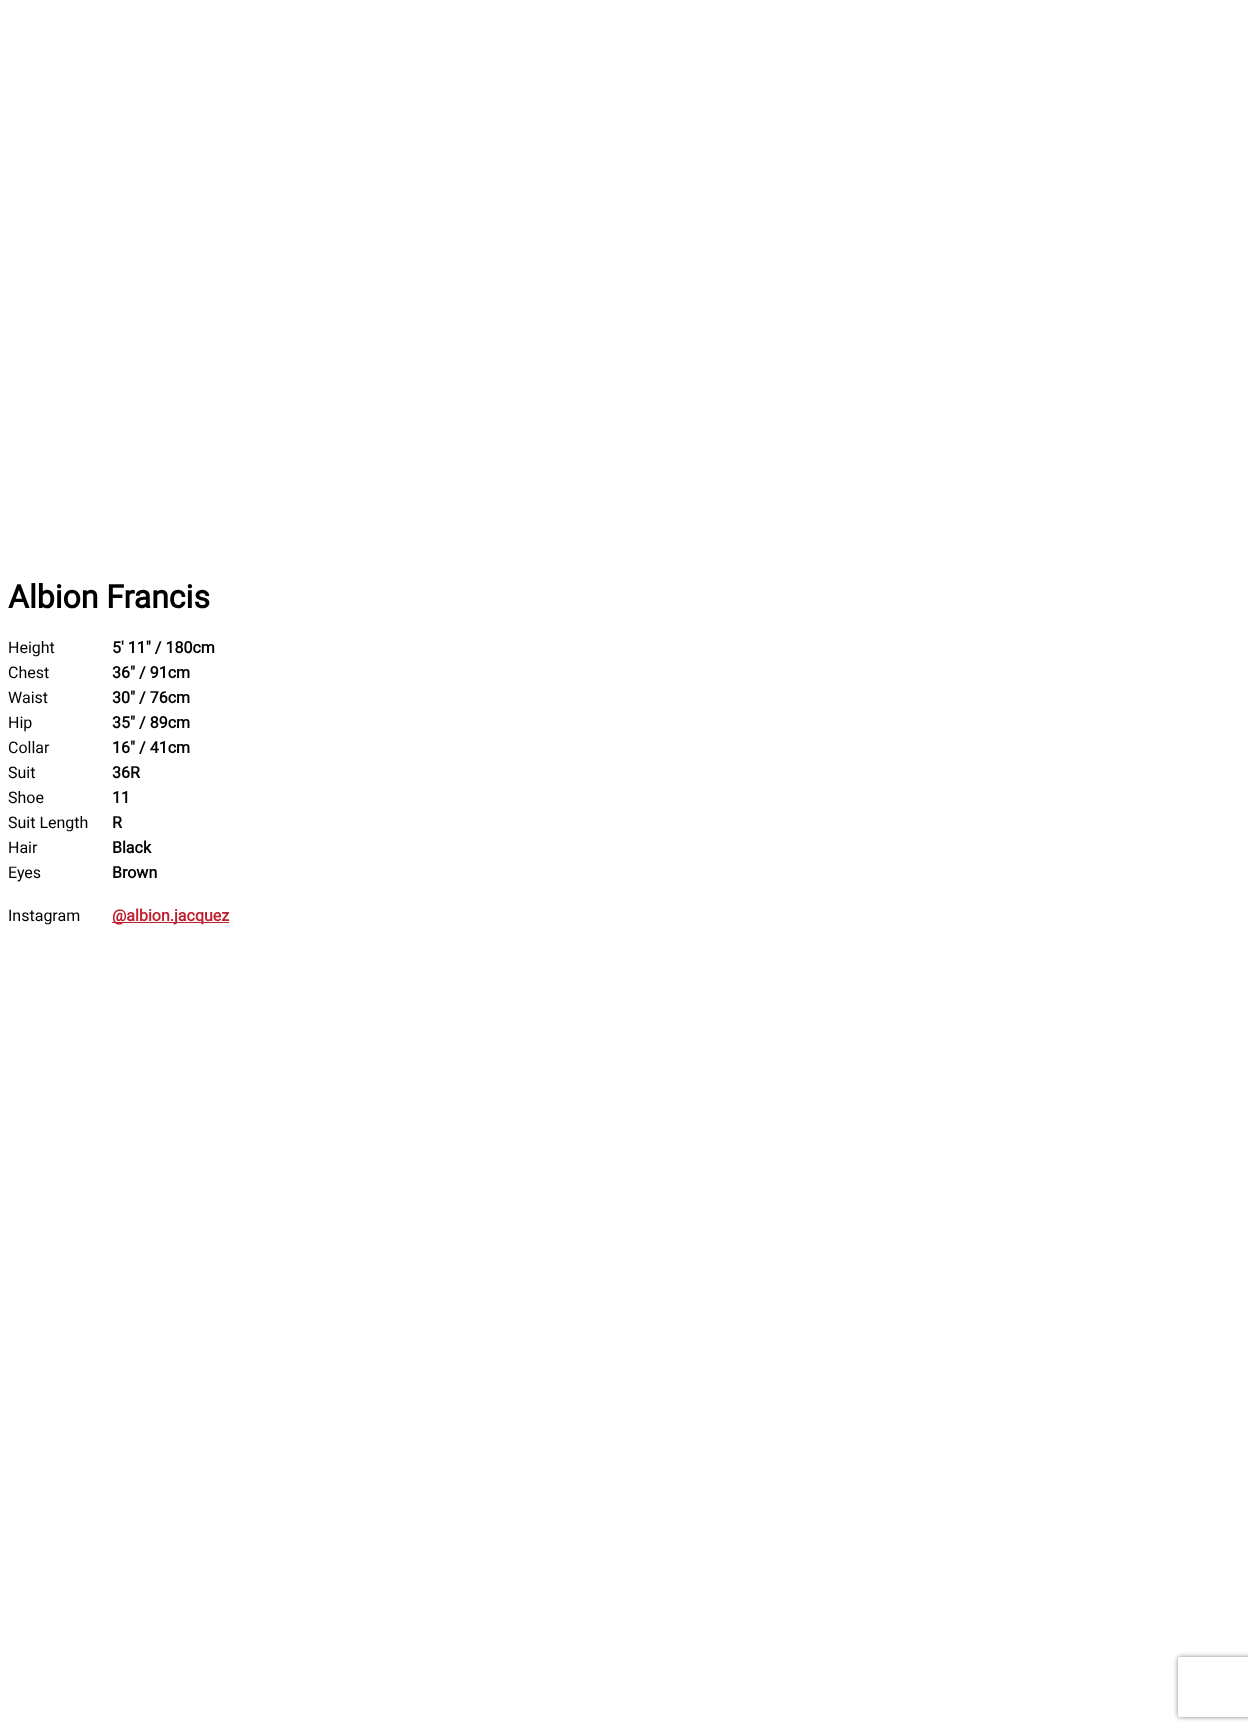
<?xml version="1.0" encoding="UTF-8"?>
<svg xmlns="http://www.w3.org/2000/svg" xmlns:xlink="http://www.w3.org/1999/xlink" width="1248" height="1731">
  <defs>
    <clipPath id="clip1"><path d="M 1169 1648 h 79 v 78 h -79 z m 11 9 h 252 c 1 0 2 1 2 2 v 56 c 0 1 -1 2 -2 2 h -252 c -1 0 -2 -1 -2 -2 v -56 c 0 -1 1 -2 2 -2 z" clip-rule="evenodd" /></clipPath>
  </defs>
  <rect width="100%" height="100%" fill="#ffffff" />
  <rect x="112" y="922" width="117" height="1" fill="#be1e2d" />
  <g clip-path="url(#clip1)">
    <rect x="1178" y="1657" width="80" height="60" rx="2" fill="#808080" filter="blur(2.5px)" />
  </g>
  <text x="8" y="608" style="font-family: Roboto; font-size: 32px; font-weight: bold; fill: #000000">Albion Francis</text>
  <text x="8" y="653" style="font-family: Roboto; font-size: 16px; fill: #000000">Height</text>
  <text x="112" y="653" style="font-family: Roboto; font-size: 16px; font-weight: bold; fill: #000000">5' 11" / 180cm</text>
  <text x="8" y="678" style="font-family: Roboto; font-size: 16px; fill: #000000">Chest</text>
  <text x="112" y="678" style="font-family: Roboto; font-size: 16px; font-weight: bold; fill: #000000">36" / 91cm</text>
  <text x="8" y="703" style="font-family: Roboto; font-size: 16px; fill: #000000">Waist</text>
  <text x="112" y="703" style="font-family: Roboto; font-size: 16px; font-weight: bold; fill: #000000">30" / 76cm</text>
  <text x="8" y="728" style="font-family: Roboto; font-size: 16px; fill: #000000">Hip</text>
  <text x="112" y="728" style="font-family: Roboto; font-size: 16px; font-weight: bold; fill: #000000">35" / 89cm</text>
  <text x="8" y="753" style="font-family: Roboto; font-size: 16px; fill: #000000">Collar</text>
  <text x="112" y="753" style="font-family: Roboto; font-size: 16px; font-weight: bold; fill: #000000">16" / 41cm</text>
  <text x="8" y="778" style="font-family: Roboto; font-size: 16px; fill: #000000">Suit</text>
  <text x="112" y="778" style="font-family: Roboto; font-size: 16px; font-weight: bold; fill: #000000">36R</text>
  <text x="8" y="803" style="font-family: Roboto; font-size: 16px; fill: #000000">Shoe</text>
  <text x="112" y="803" style="font-family: Roboto; font-size: 16px; font-weight: bold; fill: #000000">11</text>
  <text x="8" y="828" style="font-family: Roboto; font-size: 16px; fill: #000000">Suit Length</text>
  <text x="112" y="828" style="font-family: Roboto; font-size: 16px; font-weight: bold; fill: #000000">R</text>
  <text x="8" y="853" style="font-family: Roboto; font-size: 16px; fill: #000000">Hair</text>
  <text x="112" y="853" style="font-family: Roboto; font-size: 16px; font-weight: bold; fill: #000000">Black</text>
  <text x="8" y="878" style="font-family: Roboto; font-size: 16px; fill: #000000">Eyes</text>
  <text x="112" y="878" style="font-family: Roboto; font-size: 16px; font-weight: bold; fill: #000000">Brown</text>
  <text x="8" y="921" style="font-family: Roboto; font-size: 16px; fill: #000000">Instagram</text>
  <text x="112" y="921" style="font-family: Roboto; font-size: 16px; font-weight: bold; fill: #be1e2d">@albion.jacquez</text>
</svg>
